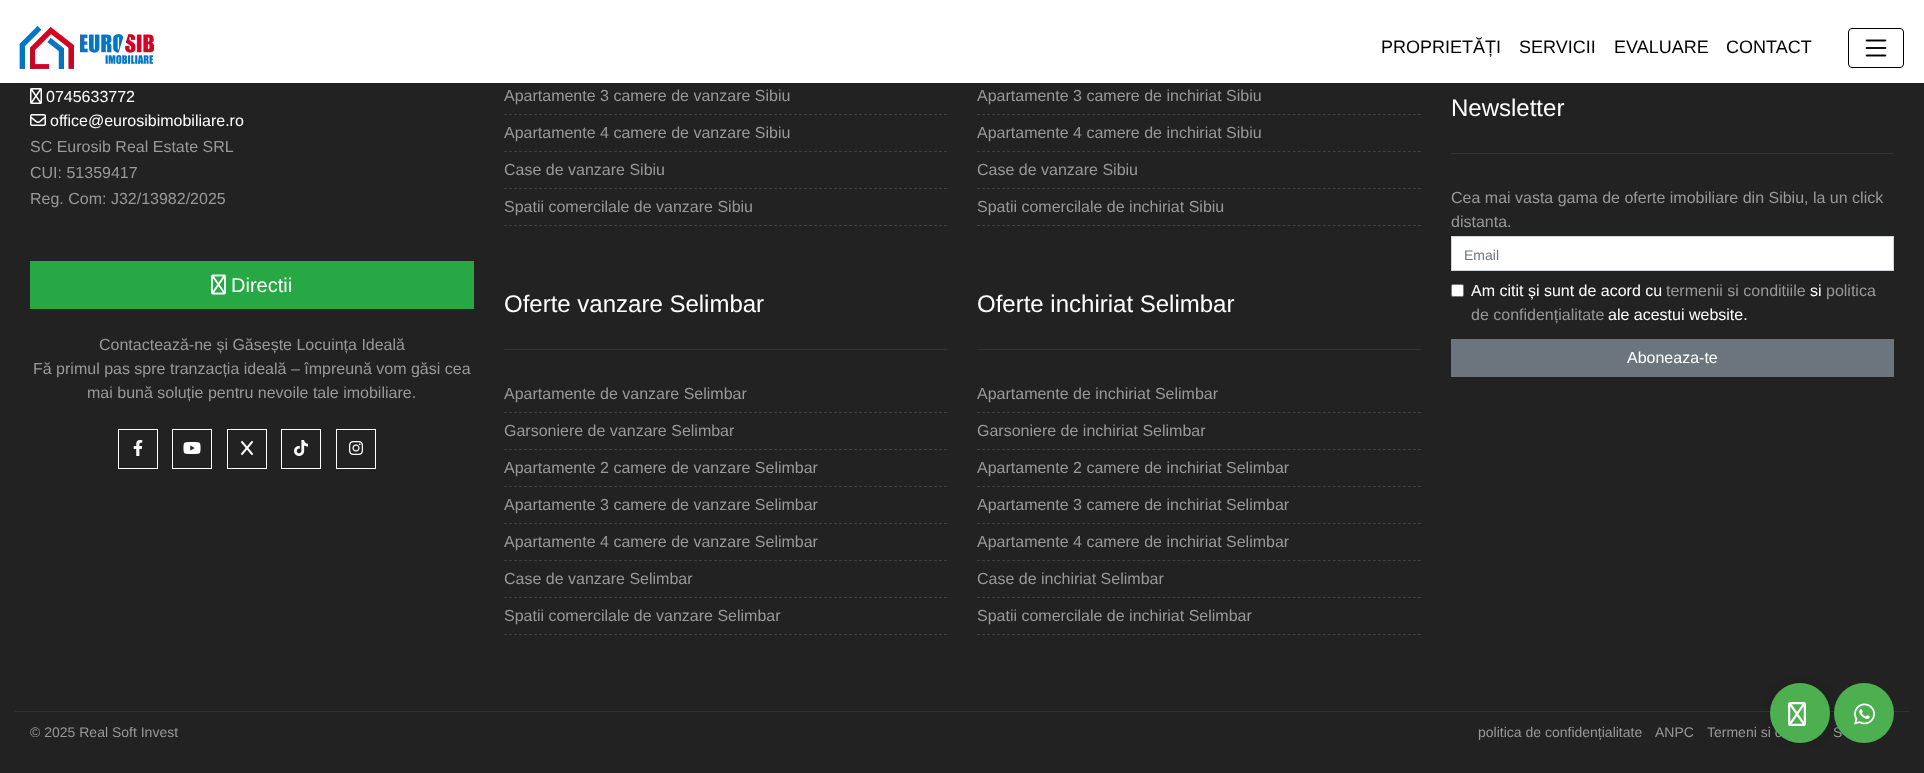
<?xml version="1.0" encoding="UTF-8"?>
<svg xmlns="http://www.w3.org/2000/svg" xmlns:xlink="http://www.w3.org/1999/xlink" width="1924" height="773">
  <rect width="100%" height="100%" fill="#222222" />
  <rect width="1924" height="83" fill="#ffffff" />
  <image x="19" y="26" width="135" height="43" xlink:href="image1.png" />
  <rect x="1848.5" y="28.5" width="55" height="39" rx="3.5" fill="none" stroke="#000000" />
  <image x="1865" y="39" width="22" height="18" xlink:href="image2.png" />
  <image x="30" y="88" width="12" height="16" xlink:href="image3.png" />
  <image x="30" y="114" width="16" height="12" xlink:href="image4.png" />
  <rect x="30" y="261" width="444" height="48" fill="#28a745" />
  <image x="211" y="274" width="15" height="21" xlink:href="image5.png" />
  <rect x="118.5" y="429.5" width="39" height="39" fill="none" stroke="#ffffff" />
  <image x="133" y="440" width="10" height="16" xlink:href="image6.png" />
  <rect x="172.5" y="429.5" width="39" height="39" fill="none" stroke="#ffffff" />
  <image x="183" y="442" width="18" height="12" xlink:href="image7.png" />
  <rect x="227.5" y="429.5" width="39" height="39" fill="none" stroke="#ffffff" />
  <image x="241" y="441" width="12" height="14" xlink:href="image8.png" />
  <rect x="281.5" y="429.5" width="39" height="39" fill="none" stroke="#ffffff" />
  <image x="294" y="440" width="14" height="16" xlink:href="image9.png" />
  <rect x="336.5" y="429.5" width="39" height="39" fill="none" stroke="#ffffff" />
  <image x="349" y="441" width="14" height="14" xlink:href="image10.png" />
  <path d="M 504 114.5 h 443" fill="none" stroke="#404040" stroke-dasharray="3 2" />
  <path d="M 504 151.5 h 443" fill="none" stroke="#404040" stroke-dasharray="3 2" />
  <path d="M 504 188.5 h 443" fill="none" stroke="#404040" stroke-dasharray="3 2" />
  <path d="M 504 225.5 h 443" fill="none" stroke="#404040" stroke-dasharray="3 2" />
  <rect x="504" y="349" width="443" height="1" fill="#333333" />
  <path d="M 504 412.5 h 443" fill="none" stroke="#404040" stroke-dasharray="3 2" />
  <path d="M 504 449.5 h 443" fill="none" stroke="#404040" stroke-dasharray="3 2" />
  <path d="M 504 486.5 h 443" fill="none" stroke="#404040" stroke-dasharray="3 2" />
  <path d="M 504 523.5 h 443" fill="none" stroke="#404040" stroke-dasharray="3 2" />
  <path d="M 504 560.5 h 443" fill="none" stroke="#404040" stroke-dasharray="3 2" />
  <path d="M 504 597.5 h 443" fill="none" stroke="#404040" stroke-dasharray="3 2" />
  <path d="M 504 634.5 h 443" fill="none" stroke="#404040" stroke-dasharray="3 2" />
  <path d="M 977 114.5 h 444" fill="none" stroke="#404040" stroke-dasharray="3 2.01" />
  <path d="M 977 151.5 h 444" fill="none" stroke="#404040" stroke-dasharray="3 2.01" />
  <path d="M 977 188.5 h 444" fill="none" stroke="#404040" stroke-dasharray="3 2.01" />
  <path d="M 977 225.5 h 444" fill="none" stroke="#404040" stroke-dasharray="3 2.01" />
  <rect x="977" y="349" width="444" height="1" fill="#333333" />
  <path d="M 977 412.5 h 444" fill="none" stroke="#404040" stroke-dasharray="3 2.01" />
  <path d="M 977 449.5 h 444" fill="none" stroke="#404040" stroke-dasharray="3 2.01" />
  <path d="M 977 486.5 h 444" fill="none" stroke="#404040" stroke-dasharray="3 2.01" />
  <path d="M 977 523.5 h 444" fill="none" stroke="#404040" stroke-dasharray="3 2.01" />
  <path d="M 977 560.5 h 444" fill="none" stroke="#404040" stroke-dasharray="3 2.01" />
  <path d="M 977 597.5 h 444" fill="none" stroke="#404040" stroke-dasharray="3 2.01" />
  <path d="M 977 634.5 h 444" fill="none" stroke="#404040" stroke-dasharray="3 2.01" />
  <rect x="1451" y="153" width="443" height="1" fill="#333333" />
  <rect x="1451.5" y="236.5" width="442" height="34" fill="#ffffff" stroke="#ced4da" />
  <rect x="1451.5" y="284.5" width="12" height="12" rx="1.5" fill="#ffffff" stroke="#767676" />
  <rect x="1451" y="339" width="443" height="38" fill="#6c757d" />
  <rect x="15" y="711" width="1894" height="1" fill="#333333" />
  <rect x="1770" y="683" width="60" height="60" rx="30" fill="#000000" fill-opacity="0.1" filter="blur(5px)" />
  <text x="1381" y="53" style="font-family: Liberation Sans; font-size: 18px; fill: #000000">PROPRIETĂȚI</text>
  <text x="1519" y="53" style="font-family: Liberation Sans; font-size: 18px; fill: #000000">SERVICII</text>
  <text x="1614" y="53" style="font-family: Liberation Sans; font-size: 18px; fill: #000000">EVALUARE</text>
  <text x="1726" y="53" style="font-family: Liberation Sans; font-size: 18px; fill: #000000">CONTACT</text>
  <text x="46" y="102" style="font-family: Liberation Sans; font-size: 16px; fill: #ffffff">0745633772</text>
  <text x="50" y="126" style="font-family: Liberation Sans; font-size: 16px; fill: #ffffff">office@eurosibimobiliare.ro</text>
  <text x="30" y="152" style="font-family: Liberation Sans; font-size: 16px; fill: #999999">SC Eurosib Real Estate SRL</text>
  <text x="30" y="178" style="font-family: Liberation Sans; font-size: 16px; fill: #999999">CUI: 51359417</text>
  <text x="30" y="204" style="font-family: Liberation Sans; font-size: 16px; fill: #999999">Reg. Com: J32/13982/2025</text>
  <text x="231" y="292" style="font-family: Liberation Sans; font-size: 20px; fill: #ffffff">Directii</text>
  <text x="99" y="350" style="font-family: Liberation Sans; font-size: 16px; fill: #999999">Contactează-ne și Găsește Locuința Ideală</text>
  <text x="33" y="374" style="font-family: Liberation Sans; font-size: 16px; fill: #999999">Fă primul pas spre tranzacția ideală – împreună vom găsi cea</text>
  <text x="87" y="398" style="font-family: Liberation Sans; font-size: 16px; fill: #999999">mai bună soluție pentru nevoile tale imobiliare.</text>
  <text x="504" y="101" style="font-family: Liberation Sans; font-size: 16px; fill: #999999">Apartamente 3 camere de vanzare Sibiu</text>
  <text x="504" y="138" style="font-family: Liberation Sans; font-size: 16px; fill: #999999">Apartamente 4 camere de vanzare Sibiu</text>
  <text x="504" y="175" style="font-family: Liberation Sans; font-size: 16px; fill: #999999">Case de vanzare Sibiu</text>
  <text x="504" y="212" style="font-family: Liberation Sans; font-size: 16px; fill: #999999">Spatii comercilale de vanzare Sibiu</text>
  <text x="504" y="312" style="font-family: Liberation Sans; font-size: 24px; fill: #ffffff">Oferte vanzare Selimbar</text>
  <text x="504" y="399" style="font-family: Liberation Sans; font-size: 16px; fill: #999999">Apartamente de vanzare Selimbar</text>
  <text x="504" y="436" style="font-family: Liberation Sans; font-size: 16px; fill: #999999">Garsoniere de vanzare Selimbar</text>
  <text x="504" y="473" style="font-family: Liberation Sans; font-size: 16px; fill: #999999">Apartamente 2 camere de vanzare Selimbar</text>
  <text x="504" y="510" style="font-family: Liberation Sans; font-size: 16px; fill: #999999">Apartamente 3 camere de vanzare Selimbar</text>
  <text x="504" y="547" style="font-family: Liberation Sans; font-size: 16px; fill: #999999">Apartamente 4 camere de vanzare Selimbar</text>
  <text x="504" y="584" style="font-family: Liberation Sans; font-size: 16px; fill: #999999">Case de vanzare Selimbar</text>
  <text x="504" y="621" style="font-family: Liberation Sans; font-size: 16px; fill: #999999">Spatii comercilale de vanzare Selimbar</text>
  <text x="977" y="101" style="font-family: Liberation Sans; font-size: 16px; fill: #999999">Apartamente 3 camere de inchiriat Sibiu</text>
  <text x="977" y="138" style="font-family: Liberation Sans; font-size: 16px; fill: #999999">Apartamente 4 camere de inchiriat Sibiu</text>
  <text x="977" y="175" style="font-family: Liberation Sans; font-size: 16px; fill: #999999">Case de vanzare Sibiu</text>
  <text x="977" y="212" style="font-family: Liberation Sans; font-size: 16px; fill: #999999">Spatii comercilale de inchiriat Sibiu</text>
  <text x="977" y="312" style="font-family: Liberation Sans; font-size: 24px; fill: #ffffff">Oferte inchiriat Selimbar</text>
  <text x="977" y="399" style="font-family: Liberation Sans; font-size: 16px; fill: #999999">Apartamente de inchiriat Selimbar</text>
  <text x="977" y="436" style="font-family: Liberation Sans; font-size: 16px; fill: #999999">Garsoniere de inchiriat Selimbar</text>
  <text x="977" y="473" style="font-family: Liberation Sans; font-size: 16px; fill: #999999">Apartamente 2 camere de inchiriat Selimbar</text>
  <text x="977" y="510" style="font-family: Liberation Sans; font-size: 16px; fill: #999999">Apartamente 3 camere de inchiriat Selimbar</text>
  <text x="977" y="547" style="font-family: Liberation Sans; font-size: 16px; fill: #999999">Apartamente 4 camere de inchiriat Selimbar</text>
  <text x="977" y="584" style="font-family: Liberation Sans; font-size: 16px; fill: #999999">Case de inchiriat Selimbar</text>
  <text x="977" y="621" style="font-family: Liberation Sans; font-size: 16px; fill: #999999">Spatii comercilale de inchiriat Selimbar</text>
  <text x="1451" y="116" style="font-family: Liberation Sans; font-size: 24px; fill: #ffffff">Newsletter</text>
  <text x="1451" y="203" style="font-family: Liberation Sans; font-size: 16px; fill: #999999">Cea mai vasta gama de oferte imobiliare din Sibiu, la un click</text>
  <text x="1451" y="227" style="font-family: Liberation Sans; font-size: 16px; fill: #999999">distanta.</text>
  <text x="1464" y="260" style="font-family: Liberation Sans; font-size: 14px; fill: #6c757d">Email</text>
  <text x="1471" y="296" style="font-family: Liberation Sans; font-size: 16px; fill: #ffffff">Am citit și sunt de acord cu</text>
  <text x="1666" y="296" style="font-family: Liberation Sans; font-size: 16px; fill: #999999">termenii si conditiile</text>
  <text x="1810" y="296" style="font-family: Liberation Sans; font-size: 16px; fill: #ffffff">si</text>
  <text x="1826" y="296" style="font-family: Liberation Sans; font-size: 16px; fill: #999999">politica</text>
  <text x="1471" y="320" style="font-family: Liberation Sans; font-size: 16px; fill: #999999">de confidențialitate</text>
  <text x="1608" y="320" style="font-family: Liberation Sans; font-size: 16px; fill: #ffffff">ale acestui website.</text>
  <text x="1627" y="363" style="font-family: Liberation Sans; font-size: 16px; fill: #ffffff">Aboneaza-te</text>
  <text x="30" y="737" style="font-family: Liberation Sans; font-size: 14px; fill: #999999">© 2025 Real Soft Invest</text>
  <text x="1478" y="737" style="font-family: Liberation Sans; font-size: 14px; fill: #999999">politica de confidențialitate</text>
  <text x="1655" y="737" style="font-family: Liberation Sans; font-size: 14px; fill: #999999">ANPC</text>
  <text x="1707" y="737" style="font-family: Liberation Sans; font-size: 14px; fill: #999999">Termeni si c</text>
  <text x="1833" y="737" style="font-family: Liberation Sans; font-size: 14px; fill: #999999">S</text>
  <circle cx="1800" cy="713" r="30" fill="#4caf50" />
  <image x="1788" y="702" width="18" height="24" xlink:href="image11.png" />
  <circle cx="1864" cy="713" r="30" fill="#4caf50" />
  <image x="1854" y="703" width="21" height="22" xlink:href="image12.png" />
</svg>
